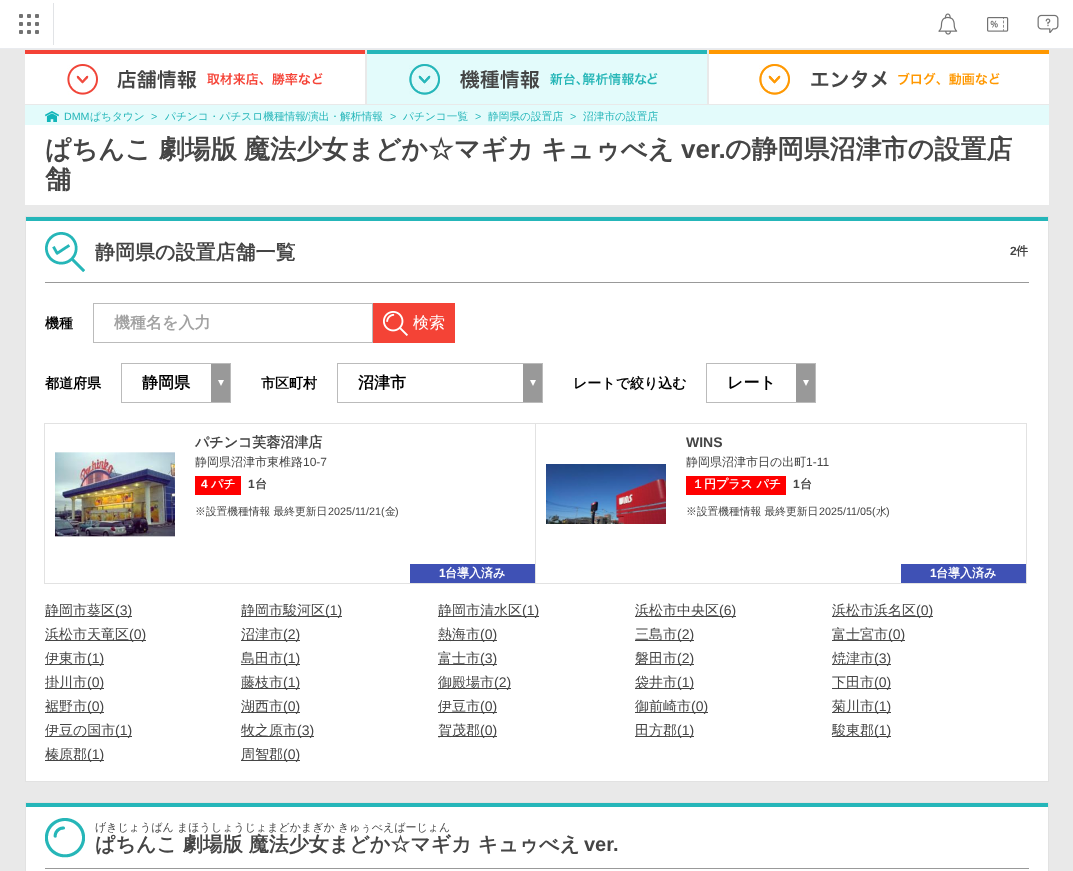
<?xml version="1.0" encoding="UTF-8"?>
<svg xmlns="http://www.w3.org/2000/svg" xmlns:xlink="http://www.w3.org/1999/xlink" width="1073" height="871">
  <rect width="100%" height="100%" fill="#e9e9e9" />
  <rect width="1073" height="48" fill="#ffffff" />
  <rect y="48" width="1073" height="1" fill="#e9ebef" />
  <rect x="53" y="3" width="1" height="42" fill="#e1e3e6" />
  <image x="19" y="14" width="20" height="20" xlink:href="image1.png" />
  <image x="938" y="13" width="20" height="22" xlink:href="image2.png" />
  <image x="987" y="17" width="22" height="15" xlink:href="image3.png" />
  <image x="1037" y="14" width="22" height="19" xlink:href="image4.png" />
  <image x="25" y="50" width="340" height="54" xlink:href="image5.png" />
  <image x="367" y="50" width="340" height="54" xlink:href="image6.png" />
  <image x="709" y="50" width="340" height="54" xlink:href="image7.png" />
  <rect x="25" y="105" width="1024" height="20" fill="#e3fbfb" />
  <image x="45" y="111" width="14" height="11" xlink:href="image8.png" />
  <rect x="25" y="125" width="1024" height="80" fill="#ffffff" />
  <rect x="26" y="221" width="1022" height="560" fill="#ffffff" />
  <rect x="26" y="217" width="1022" height="4" fill="#25b6b9" />
  <rect x="25.5" y="216.5" width="1023" height="565" fill="none" stroke="#e2e2e2" />
  <image x="45" y="232" width="40" height="40" xlink:href="image9.png" />
  <rect x="45" y="282" width="984" height="1" fill="#999999" />
  <rect x="93.5" y="303.5" width="279" height="39" fill="none" stroke="#bbbbbb" />
  <rect x="373" y="303" width="82" height="40" fill="#f44336" />
  <image x="383" y="311" width="25" height="25" xlink:href="image10.png" />
  <rect x="211" y="364" width="19" height="38" fill="#999999" />
  <path d="M 218 380 h 6 l -3 6 z" fill="#ffffff" />
  <rect x="121.5" y="363.5" width="109" height="39" fill="none" stroke="#bbbbbb" />
  <rect x="523" y="364" width="19" height="38" fill="#999999" />
  <path d="M 530 380 h 6 l -3 6 z" fill="#ffffff" />
  <rect x="337.5" y="363.5" width="205" height="39" fill="none" stroke="#bbbbbb" />
  <rect x="796" y="364" width="19" height="38" fill="#999999" />
  <path d="M 803 380 h 6 l -3 6 z" fill="#ffffff" />
  <rect x="706.5" y="363.5" width="109" height="39" fill="none" stroke="#bbbbbb" />
  <rect x="44.5" y="423.5" width="491" height="160" fill="none" stroke="#e2e2e2" />
  <image x="55" y="452" width="120" height="85" xlink:href="image11.png" />
  <rect x="195" y="476" width="46" height="19" fill="#ff0000" />
  <rect x="410" y="564" width="125" height="19" fill="#3f51b5" />
  <rect x="535.5" y="423.5" width="491" height="160" fill="none" stroke="#e2e2e2" />
  <image x="546" y="464" width="120" height="60" xlink:href="image12.png" />
  <rect x="686" y="476" width="100" height="19" fill="#ff0000" />
  <rect x="901" y="564" width="125" height="19" fill="#3f51b5" />
  <rect x="45" y="616" width="87" height="1" fill="#454545" />
  <rect x="241" y="616" width="101" height="1" fill="#454545" />
  <rect x="438" y="616" width="101" height="1" fill="#454545" />
  <rect x="635" y="616" width="101" height="1" fill="#454545" />
  <rect x="832" y="616" width="101" height="1" fill="#454545" />
  <rect x="45" y="640" width="101" height="1" fill="#454545" />
  <rect x="241" y="640" width="59" height="1" fill="#454545" />
  <rect x="438" y="640" width="59" height="1" fill="#454545" />
  <rect x="635" y="640" width="59" height="1" fill="#454545" />
  <rect x="832" y="640" width="73" height="1" fill="#454545" />
  <rect x="45" y="664" width="59" height="1" fill="#454545" />
  <rect x="241" y="664" width="59" height="1" fill="#454545" />
  <rect x="438" y="664" width="59" height="1" fill="#454545" />
  <rect x="635" y="664" width="59" height="1" fill="#454545" />
  <rect x="832" y="664" width="59" height="1" fill="#454545" />
  <rect x="45" y="688" width="59" height="1" fill="#454545" />
  <rect x="241" y="688" width="59" height="1" fill="#454545" />
  <rect x="438" y="688" width="73" height="1" fill="#454545" />
  <rect x="635" y="688" width="59" height="1" fill="#454545" />
  <rect x="832" y="688" width="59" height="1" fill="#454545" />
  <rect x="45" y="712" width="59" height="1" fill="#454545" />
  <rect x="241" y="712" width="59" height="1" fill="#454545" />
  <rect x="438" y="712" width="59" height="1" fill="#454545" />
  <rect x="635" y="712" width="73" height="1" fill="#454545" />
  <rect x="832" y="712" width="59" height="1" fill="#454545" />
  <rect x="45" y="736" width="87" height="1" fill="#454545" />
  <rect x="241" y="736" width="73" height="1" fill="#454545" />
  <rect x="438" y="736" width="59" height="1" fill="#454545" />
  <rect x="635" y="736" width="59" height="1" fill="#454545" />
  <rect x="832" y="736" width="59" height="1" fill="#454545" />
  <rect x="45" y="760" width="59" height="1" fill="#454545" />
  <rect x="241" y="760" width="59" height="1" fill="#454545" />
  <rect x="26" y="807" width="1022" height="64" fill="#ffffff" />
  <rect x="26" y="803" width="1022" height="4" fill="#25b6b9" />
  <rect x="25.5" y="802.5" width="1023" height="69" fill="none" stroke="#e2e2e2" />
  <image x="45" y="818" width="40" height="40" xlink:href="image13.png" />
  <rect x="45" y="868" width="984" height="1" fill="#999999" />
  <text x="64" y="120" style="font-family: Liberation Sans; font-size: 10.7px; fill: #25b6b9">DMM</text>
  <text x="90" y="120" style="font-family: WenQuanYi Zen Hei; font-size: 10.7px; font-weight: 500; fill: #25b6b9">ぱちタウン</text>
  <text x="151" y="120" style="font-family: Liberation Sans; font-size: 10.7px; fill: #25b6b9">&gt;</text>
  <text x="165" y="120" style="font-family: WenQuanYi Zen Hei; font-size: 10.7px; font-weight: 500; fill: #25b6b9">パチンコ・パチスロ機種情報</text>
  <text x="305" y="120" style="font-family: Liberation Sans; font-size: 10.7px; fill: #25b6b9">/</text>
  <text x="308" y="120" style="font-family: WenQuanYi Zen Hei; font-size: 10.7px; font-weight: 500; fill: #25b6b9">演出・解析情報</text>
  <text x="390" y="120" style="font-family: Liberation Sans; font-size: 10.7px; fill: #25b6b9">&gt;</text>
  <text x="403" y="120" style="font-family: WenQuanYi Zen Hei; font-size: 10.7px; font-weight: 500; fill: #25b6b9">パチンコ一覧</text>
  <text x="475" y="120" style="font-family: Liberation Sans; font-size: 10.7px; fill: #25b6b9">&gt;</text>
  <text x="488" y="120" style="font-family: WenQuanYi Zen Hei; font-size: 10.7px; font-weight: 500; fill: #25b6b9">静岡県の設置店</text>
  <text x="570" y="120" style="font-family: Liberation Sans; font-size: 10.7px; fill: #25b6b9">&gt;</text>
  <text x="583" y="120" style="font-family: WenQuanYi Zen Hei; font-size: 10.7px; font-weight: 500; fill: #25b6b9">沼津市の設置店</text>
  <text x="45" y="158" word-spacing="-0.5" style="font-family: WenQuanYi Zen Hei; font-size: 26px; font-weight: bold; fill: #454545">ぱちんこ 劇場版 魔法少女まどか☆マギカ キュゥべえ</text>
  <text x="681" y="158" style="font-family: Liberation Sans; font-size: 26px; font-weight: bold; fill: #454545">ver.</text>
  <text x="725" y="158" style="font-family: WenQuanYi Zen Hei; font-size: 26px; font-weight: bold; fill: #454545">の静岡県沼津市の設置店</text>
  <text x="45" y="188" style="font-family: WenQuanYi Zen Hei; font-size: 26px; font-weight: bold; fill: #454545">舗</text>
  <text x="95" y="259" style="font-family: WenQuanYi Zen Hei; font-size: 20px; font-weight: bold; fill: #454545">静岡県の設置店舗一覧</text>
  <text x="1010" y="255" style="font-family: Liberation Sans; font-size: 12px; font-weight: bold; fill: #454545">2</text>
  <text x="1016" y="255" style="font-family: WenQuanYi Zen Hei; font-size: 12px; font-weight: bold; fill: #454545">件</text>
  <text x="45" y="328" style="font-family: WenQuanYi Zen Hei; font-size: 14px; font-weight: bold; fill: #000000">機種</text>
  <text x="114" y="328" style="font-family: WenQuanYi Zen Hei; font-size: 16px; font-weight: bold; fill: #a2a2a2">機種名を入力</text>
  <text x="413" y="328" style="font-family: WenQuanYi Zen Hei; font-size: 16px; font-weight: 500; fill: #ffffff">検索</text>
  <text x="45" y="388" style="font-family: WenQuanYi Zen Hei; font-size: 14px; font-weight: bold; fill: #000000">都道府県</text>
  <text x="142" y="388" style="font-family: WenQuanYi Zen Hei; font-size: 16px; font-weight: bold; fill: #000000">静岡県</text>
  <text x="261" y="388" style="font-family: WenQuanYi Zen Hei; font-size: 14px; font-weight: bold; fill: #000000">市区町村</text>
  <text x="358" y="388" style="font-family: WenQuanYi Zen Hei; font-size: 16px; font-weight: bold; fill: #000000">沼津市</text>
  <text x="573" y="388" style="font-family: WenQuanYi Zen Hei; font-size: 14px; font-weight: bold; fill: #000000">レートで絞り込む</text>
  <text x="727" y="388" style="font-family: WenQuanYi Zen Hei; font-size: 16px; font-weight: bold; fill: #000000">レート</text>
  <text x="195" y="447" style="font-family: WenQuanYi Zen Hei; font-size: 14px; font-weight: bold; fill: #454545">パチンコ芙蓉沼津店</text>
  <text x="195" y="466" style="font-family: WenQuanYi Zen Hei; font-size: 12px; font-weight: 500; fill: #454545">静岡県沼津市東椎路</text>
  <text x="303" y="466" style="font-family: Liberation Sans; font-size: 12px; fill: #454545">10-7</text>
  <text x="201" y="488" style="font-family: Liberation Sans; font-size: 12px; font-weight: bold; fill: #ffffff">4</text>
  <text x="211" y="488" style="font-family: WenQuanYi Zen Hei; font-size: 12px; font-weight: bold; fill: #ffffff">パチ</text>
  <text x="248" y="488" style="font-family: Liberation Sans; font-size: 12px; font-weight: bold; fill: #454545">1</text>
  <text x="255" y="488" style="font-family: WenQuanYi Zen Hei; font-size: 12px; font-weight: bold; fill: #454545">台</text>
  <text x="195" y="515" style="font-family: WenQuanYi Zen Hei; font-size: 10.75px; font-weight: 500; fill: #454545">※設置機種情報 最終更新日</text>
  <text x="328" y="515" style="font-family: Liberation Sans; font-size: 10.75px; fill: #454545">2025/11/21(</text>
  <text x="385" y="515" style="font-family: WenQuanYi Zen Hei; font-size: 10.75px; font-weight: 500; fill: #454545">金</text>
  <text x="395" y="515" style="font-family: Liberation Sans; font-size: 10.75px; fill: #454545">)</text>
  <text x="439" y="577" style="font-family: Liberation Sans; font-size: 12px; font-weight: bold; fill: #ffffff">1</text>
  <text x="445" y="577" style="font-family: WenQuanYi Zen Hei; font-size: 12px; font-weight: bold; fill: #ffffff">台導入済み</text>
  <text x="686" y="447" style="font-family: Liberation Sans; font-size: 14px; font-weight: bold; fill: #454545">WINS</text>
  <text x="686" y="466" style="font-family: WenQuanYi Zen Hei; font-size: 12px; font-weight: 500; fill: #454545">静岡県沼津市日の出町</text>
  <text x="806" y="466" style="font-family: Liberation Sans; font-size: 12px; fill: #454545">1-11</text>
  <text x="692" y="488" style="font-family: WenQuanYi Zen Hei; font-size: 12px; font-weight: bold; fill: #ffffff">１円プラス パチ</text>
  <text x="793" y="488" style="font-family: Liberation Sans; font-size: 12px; font-weight: bold; fill: #454545">1</text>
  <text x="800" y="488" style="font-family: WenQuanYi Zen Hei; font-size: 12px; font-weight: bold; fill: #454545">台</text>
  <text x="686" y="515" style="font-family: WenQuanYi Zen Hei; font-size: 10.75px; font-weight: 500; fill: #454545">※設置機種情報 最終更新日</text>
  <text x="819" y="515" style="font-family: Liberation Sans; font-size: 10.75px; fill: #454545">2025/11/05(</text>
  <text x="876" y="515" style="font-family: WenQuanYi Zen Hei; font-size: 10.75px; font-weight: 500; fill: #454545">水</text>
  <text x="886" y="515" style="font-family: Liberation Sans; font-size: 10.75px; fill: #454545">)</text>
  <text x="930" y="577" style="font-family: Liberation Sans; font-size: 12px; font-weight: bold; fill: #ffffff">1</text>
  <text x="936" y="577" style="font-family: WenQuanYi Zen Hei; font-size: 12px; font-weight: bold; fill: #ffffff">台導入済み</text>
  <text x="45" y="615" style="font-family: WenQuanYi Zen Hei; font-size: 14px; font-weight: 500; fill: #454545">静岡市葵区</text>
  <text x="115" y="615" style="font-family: Liberation Sans; font-size: 14px; fill: #454545">(3)</text>
  <text x="241" y="615" style="font-family: WenQuanYi Zen Hei; font-size: 14px; font-weight: 500; fill: #454545">静岡市駿河区</text>
  <text x="325" y="615" style="font-family: Liberation Sans; font-size: 14px; fill: #454545">(1)</text>
  <text x="438" y="615" style="font-family: WenQuanYi Zen Hei; font-size: 14px; font-weight: 500; fill: #454545">静岡市清水区</text>
  <text x="522" y="615" style="font-family: Liberation Sans; font-size: 14px; fill: #454545">(1)</text>
  <text x="635" y="615" style="font-family: WenQuanYi Zen Hei; font-size: 14px; font-weight: 500; fill: #454545">浜松市中央区</text>
  <text x="719" y="615" style="font-family: Liberation Sans; font-size: 14px; fill: #454545">(6)</text>
  <text x="832" y="615" style="font-family: WenQuanYi Zen Hei; font-size: 14px; font-weight: 500; fill: #454545">浜松市浜名区</text>
  <text x="916" y="615" style="font-family: Liberation Sans; font-size: 14px; fill: #454545">(0)</text>
  <text x="45" y="639" style="font-family: WenQuanYi Zen Hei; font-size: 14px; font-weight: 500; fill: #454545">浜松市天竜区</text>
  <text x="129" y="639" style="font-family: Liberation Sans; font-size: 14px; fill: #454545">(0)</text>
  <text x="241" y="639" style="font-family: WenQuanYi Zen Hei; font-size: 14px; font-weight: 500; fill: #454545">沼津市</text>
  <text x="283" y="639" style="font-family: Liberation Sans; font-size: 14px; fill: #454545">(2)</text>
  <text x="438" y="639" style="font-family: WenQuanYi Zen Hei; font-size: 14px; font-weight: 500; fill: #454545">熱海市</text>
  <text x="480" y="639" style="font-family: Liberation Sans; font-size: 14px; fill: #454545">(0)</text>
  <text x="635" y="639" style="font-family: WenQuanYi Zen Hei; font-size: 14px; font-weight: 500; fill: #454545">三島市</text>
  <text x="677" y="639" style="font-family: Liberation Sans; font-size: 14px; fill: #454545">(2)</text>
  <text x="832" y="639" style="font-family: WenQuanYi Zen Hei; font-size: 14px; font-weight: 500; fill: #454545">富士宮市</text>
  <text x="888" y="639" style="font-family: Liberation Sans; font-size: 14px; fill: #454545">(0)</text>
  <text x="45" y="663" style="font-family: WenQuanYi Zen Hei; font-size: 14px; font-weight: 500; fill: #454545">伊東市</text>
  <text x="87" y="663" style="font-family: Liberation Sans; font-size: 14px; fill: #454545">(1)</text>
  <text x="241" y="663" style="font-family: WenQuanYi Zen Hei; font-size: 14px; font-weight: 500; fill: #454545">島田市</text>
  <text x="283" y="663" style="font-family: Liberation Sans; font-size: 14px; fill: #454545">(1)</text>
  <text x="438" y="663" style="font-family: WenQuanYi Zen Hei; font-size: 14px; font-weight: 500; fill: #454545">富士市</text>
  <text x="480" y="663" style="font-family: Liberation Sans; font-size: 14px; fill: #454545">(3)</text>
  <text x="635" y="663" style="font-family: WenQuanYi Zen Hei; font-size: 14px; font-weight: 500; fill: #454545">磐田市</text>
  <text x="677" y="663" style="font-family: Liberation Sans; font-size: 14px; fill: #454545">(2)</text>
  <text x="832" y="663" style="font-family: WenQuanYi Zen Hei; font-size: 14px; font-weight: 500; fill: #454545">焼津市</text>
  <text x="874" y="663" style="font-family: Liberation Sans; font-size: 14px; fill: #454545">(3)</text>
  <text x="45" y="687" style="font-family: WenQuanYi Zen Hei; font-size: 14px; font-weight: 500; fill: #454545">掛川市</text>
  <text x="87" y="687" style="font-family: Liberation Sans; font-size: 14px; fill: #454545">(0)</text>
  <text x="241" y="687" style="font-family: WenQuanYi Zen Hei; font-size: 14px; font-weight: 500; fill: #454545">藤枝市</text>
  <text x="283" y="687" style="font-family: Liberation Sans; font-size: 14px; fill: #454545">(1)</text>
  <text x="438" y="687" style="font-family: WenQuanYi Zen Hei; font-size: 14px; font-weight: 500; fill: #454545">御殿場市</text>
  <text x="494" y="687" style="font-family: Liberation Sans; font-size: 14px; fill: #454545">(2)</text>
  <text x="635" y="687" style="font-family: WenQuanYi Zen Hei; font-size: 14px; font-weight: 500; fill: #454545">袋井市</text>
  <text x="677" y="687" style="font-family: Liberation Sans; font-size: 14px; fill: #454545">(1)</text>
  <text x="832" y="687" style="font-family: WenQuanYi Zen Hei; font-size: 14px; font-weight: 500; fill: #454545">下田市</text>
  <text x="874" y="687" style="font-family: Liberation Sans; font-size: 14px; fill: #454545">(0)</text>
  <text x="45" y="711" style="font-family: WenQuanYi Zen Hei; font-size: 14px; font-weight: 500; fill: #454545">裾野市</text>
  <text x="87" y="711" style="font-family: Liberation Sans; font-size: 14px; fill: #454545">(0)</text>
  <text x="241" y="711" style="font-family: WenQuanYi Zen Hei; font-size: 14px; font-weight: 500; fill: #454545">湖西市</text>
  <text x="283" y="711" style="font-family: Liberation Sans; font-size: 14px; fill: #454545">(0)</text>
  <text x="438" y="711" style="font-family: WenQuanYi Zen Hei; font-size: 14px; font-weight: 500; fill: #454545">伊豆市</text>
  <text x="480" y="711" style="font-family: Liberation Sans; font-size: 14px; fill: #454545">(0)</text>
  <text x="635" y="711" style="font-family: WenQuanYi Zen Hei; font-size: 14px; font-weight: 500; fill: #454545">御前崎市</text>
  <text x="691" y="711" style="font-family: Liberation Sans; font-size: 14px; fill: #454545">(0)</text>
  <text x="832" y="711" style="font-family: WenQuanYi Zen Hei; font-size: 14px; font-weight: 500; fill: #454545">菊川市</text>
  <text x="874" y="711" style="font-family: Liberation Sans; font-size: 14px; fill: #454545">(1)</text>
  <text x="45" y="735" style="font-family: WenQuanYi Zen Hei; font-size: 14px; font-weight: 500; fill: #454545">伊豆の国市</text>
  <text x="115" y="735" style="font-family: Liberation Sans; font-size: 14px; fill: #454545">(1)</text>
  <text x="241" y="735" style="font-family: WenQuanYi Zen Hei; font-size: 14px; font-weight: 500; fill: #454545">牧之原市</text>
  <text x="297" y="735" style="font-family: Liberation Sans; font-size: 14px; fill: #454545">(3)</text>
  <text x="438" y="735" style="font-family: WenQuanYi Zen Hei; font-size: 14px; font-weight: 500; fill: #454545">賀茂郡</text>
  <text x="480" y="735" style="font-family: Liberation Sans; font-size: 14px; fill: #454545">(0)</text>
  <text x="635" y="735" style="font-family: WenQuanYi Zen Hei; font-size: 14px; font-weight: 500; fill: #454545">田方郡</text>
  <text x="677" y="735" style="font-family: Liberation Sans; font-size: 14px; fill: #454545">(1)</text>
  <text x="832" y="735" style="font-family: WenQuanYi Zen Hei; font-size: 14px; font-weight: 500; fill: #454545">駿東郡</text>
  <text x="874" y="735" style="font-family: Liberation Sans; font-size: 14px; fill: #454545">(1)</text>
  <text x="45" y="759" style="font-family: WenQuanYi Zen Hei; font-size: 14px; font-weight: 500; fill: #454545">榛原郡</text>
  <text x="87" y="759" style="font-family: Liberation Sans; font-size: 14px; fill: #454545">(1)</text>
  <text x="241" y="759" style="font-family: WenQuanYi Zen Hei; font-size: 14px; font-weight: 500; fill: #454545">周智郡</text>
  <text x="283" y="759" style="font-family: Liberation Sans; font-size: 14px; fill: #454545">(0)</text>
  <text x="95" y="831" style="font-family: WenQuanYi Zen Hei; font-size: 11px; font-weight: 500; fill: #454545">げきじょうばん まほうしょうじょまどかまぎか きゅぅべえばーじょん</text>
  <text x="95" y="851" style="font-family: WenQuanYi Zen Hei; font-size: 20px; font-weight: bold; fill: #454545">ぱちんこ 劇場版 魔法少女まどか☆マギカ キュゥべえ</text>
  <text x="584" y="851" style="font-family: Liberation Sans; font-size: 20px; font-weight: bold; fill: #454545">ver.</text>
</svg>
